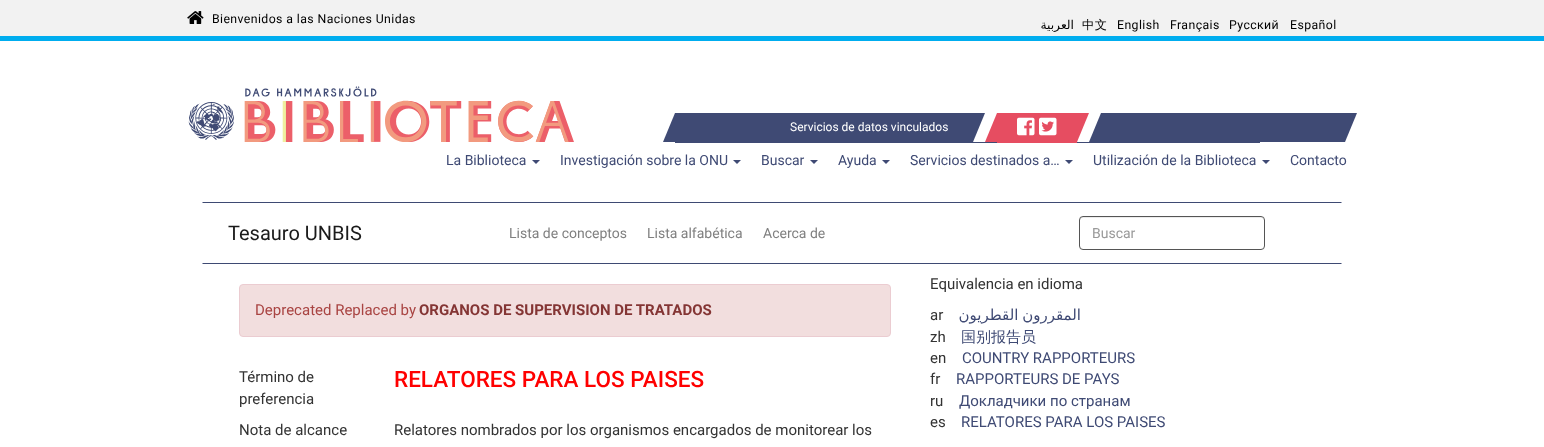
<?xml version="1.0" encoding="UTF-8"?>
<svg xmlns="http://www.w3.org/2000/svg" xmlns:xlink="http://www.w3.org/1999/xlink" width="1544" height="447">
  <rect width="100%" height="100%" fill="#ffffff" />
  <rect width="1544" height="36" fill="#f2f2f2" />
  <rect y="36" width="1544" height="5" fill="#00adef" />
  <image x="187" y="11" width="17" height="13" xlink:href="image1.png" />
  <image x="188" y="86" width="386" height="56" xlink:href="image2.png" />
  <path d="M 675 113 v 29 h -12 z" fill="#3f4a74" />
  <rect x="675" y="113" width="585" height="30" fill="#3f4a74" />
  <rect x="973" y="113" width="24" height="29" fill="#ffffff" />
  <path d="M 973 113 h 12 l -12 29 z" fill="#3f4a74" />
  <path d="M 997 113 v 29 h -12 z" fill="#e64d61" />
  <rect x="997" y="113" width="80" height="30" fill="#e64d61" />
  <image x="1017" y="117" width="18" height="19" xlink:href="image3.png" />
  <image x="1039" y="117" width="18" height="19" xlink:href="image4.png" />
  <rect x="1077" y="113" width="24" height="29" fill="#ffffff" />
  <path d="M 1077 113 h 12 l -12 29 z" fill="#e64d61" />
  <path d="M 1101 113 v 29 h -12 z" fill="#3f4a74" />
  <path d="M 1260 113 h 97 l -12 29 h -85 z" fill="#3f4a74" />
  <path d="M 532 160 h 8 l -4 4 z" fill="#3f4a74" />
  <path d="M 733 160 h 8 l -4 4 z" fill="#3f4a74" />
  <path d="M 810 160 h 8 l -4 4 z" fill="#3f4a74" />
  <path d="M 882 160 h 8 l -4 4 z" fill="#3f4a74" />
  <path d="M 1065 160 h 8 l -4 4 z" fill="#3f4a74" />
  <path d="M 1262 160 h 8 l -4 4 z" fill="#3f4a74" />
  <path d="M 202 202 h 1140 l -1 1 h -1138 z" fill="#3e4a73" />
  <path d="M 1342 264 h -1140 l 1 -1 h 1138 z" fill="#3e4a73" />
  <rect x="1079.5" y="216.5" width="69" height="33" rx="3.5" fill="none" stroke="#cccccc" />
  <rect x="1079" y="216" width="186" height="34" rx="4" fill="#ffffff" />
  <path d="M 1083 218 h 179 l 1 1 l 1 2 c 0 -2 -1 -4 -3 -4 h -179 c -2 1 -2 2 -2 4 c 0 -2 1 -3 3 -3 z" fill="#ececec" />
  <rect x="1079.5" y="216.5" width="185" height="33" rx="3.5" fill="none" stroke="#555555" />
  <rect x="239.5" y="284.5" width="651" height="52" rx="3.5" fill="#f2dede" stroke="#ebccd1" />
  <text x="212" y="23" style="font-family: Roboto; font-size: 12.3px; letter-spacing: 0.4px; fill: #000000">Bienvenidos a las Naciones Unidas</text>
  <text x="1074" y="29" style="font-family: DejaVu Sans; font-size: 12.3px; letter-spacing: 0.4px; direction: rtl; fill: #000000">العربية</text>
  <text x="1082" y="29" style="font-family: WenQuanYi Zen Hei; font-size: 12.3px; font-weight: 500; letter-spacing: 0.4px; fill: #000000">中文</text>
  <text x="1117" y="29" style="font-family: Roboto; font-size: 12.3px; letter-spacing: 0.4px; fill: #000000">English</text>
  <text x="1170" y="29" style="font-family: Roboto; font-size: 12.3px; letter-spacing: 0.4px; fill: #000000">Français</text>
  <text x="1229" y="29" style="font-family: Roboto; font-size: 12.3px; letter-spacing: 0.4px; fill: #000000">Русский</text>
  <text x="1290" y="29" style="font-family: Roboto; font-size: 12.3px; letter-spacing: 0.4px; fill: #000000">Español</text>
  <text x="790" y="131" style="font-family: Roboto; font-size: 12px; fill: #ffffff">Servicios de datos vinculados</text>
  <text x="446" y="165" style="font-family: Roboto; font-size: 14px; fill: #3f4a74">La Biblioteca</text>
  <text x="560" y="165" style="font-family: Roboto; font-size: 14px; fill: #3f4a74">Investigación sobre la ONU</text>
  <text x="761" y="165" style="font-family: Roboto; font-size: 14px; fill: #3f4a74">Buscar</text>
  <text x="838" y="165" style="font-family: Roboto; font-size: 14px; fill: #3f4a74">Ayuda</text>
  <text x="910" y="165" style="font-family: Roboto; font-size: 14px; fill: #3f4a74">Servicios destinados a…</text>
  <text x="1093" y="165" style="font-family: Roboto; font-size: 14px; fill: #3f4a74">Utilización de la Biblioteca</text>
  <text x="1290" y="165" style="font-family: Roboto; font-size: 14px; fill: #3f4a74">Contacto</text>
  <text x="228" y="240" style="font-family: Roboto; font-size: 20px; fill: #1a1a1a">Tesauro UNBIS</text>
  <text x="509" y="238" style="font-family: Roboto; font-size: 14px; fill: #808080">Lista de conceptos</text>
  <text x="647" y="238" style="font-family: Roboto; font-size: 14px; fill: #808080">Lista alfabética</text>
  <text x="763" y="238" style="font-family: Roboto; font-size: 14px; fill: #808080">Acerca de</text>
  <text x="1092" y="238" style="font-family: Roboto; font-size: 14px; fill: #999999">Buscar</text>
  <text x="255" y="315" style="font-family: Roboto; font-size: 15px; fill: #a94442">Deprecated Replaced by</text>
  <text x="419" y="315" style="font-family: Roboto; font-size: 15px; font-weight: bold; fill: #843534">ORGANOS DE SUPERVISION DE TRATADOS</text>
  <text x="239" y="382" style="font-family: Roboto; font-size: 15px; fill: #333333">Término de</text>
  <text x="239" y="404" style="font-family: Roboto; font-size: 15px; fill: #333333">preferencia</text>
  <text x="394" y="387" style="font-family: Roboto; font-size: 22.5px; font-weight: 500; fill: #ff0000">RELATORES PARA LOS PAISES</text>
  <text x="239" y="435" style="font-family: Roboto; font-size: 15px; fill: #333333">Nota de alcance</text>
  <text x="394" y="435" style="font-family: Roboto; font-size: 15px; fill: #333333">Relatores nombrados por los organismos encargados de monitorear los</text>
  <text x="930" y="289" style="font-family: Roboto; font-size: 15px; fill: #333333">Equivalencia en idioma</text>
  <text x="930" y="320" style="font-family: Roboto; font-size: 15px; fill: #333333">ar</text>
  <text x="1081" y="320" word-spacing="-1" style="font-family: DejaVu Sans; font-size: 15px; direction: rtl; fill: #3f4a74">المقررون القطريون</text>
  <text x="930" y="342" style="font-family: Roboto; font-size: 15px; fill: #333333">zh</text>
  <text x="961" y="342" style="font-family: WenQuanYi Zen Hei; font-size: 15px; font-weight: 500; fill: #3f4a74">国别报告员</text>
  <text x="930" y="363" style="font-family: Roboto; font-size: 15px; fill: #333333">en</text>
  <text x="962" y="363" style="font-family: Roboto; font-size: 15px; fill: #3f4a74">COUNTRY RAPPORTEURS</text>
  <text x="930" y="384" style="font-family: Roboto; font-size: 15px; fill: #333333">fr</text>
  <text x="956" y="384" style="font-family: Roboto; font-size: 15px; fill: #3f4a74">RAPPORTEURS DE PAYS</text>
  <text x="930" y="406" style="font-family: Roboto; font-size: 15px; fill: #333333">ru</text>
  <text x="959" y="406" style="font-family: Roboto; font-size: 15px; fill: #3f4a74">Докладчики по странам</text>
  <text x="930" y="427" style="font-family: Roboto; font-size: 15px; fill: #333333">es</text>
  <text x="961" y="427" style="font-family: Roboto; font-size: 15px; fill: #3f4a74">RELATORES PARA LOS PAISES</text>
</svg>
